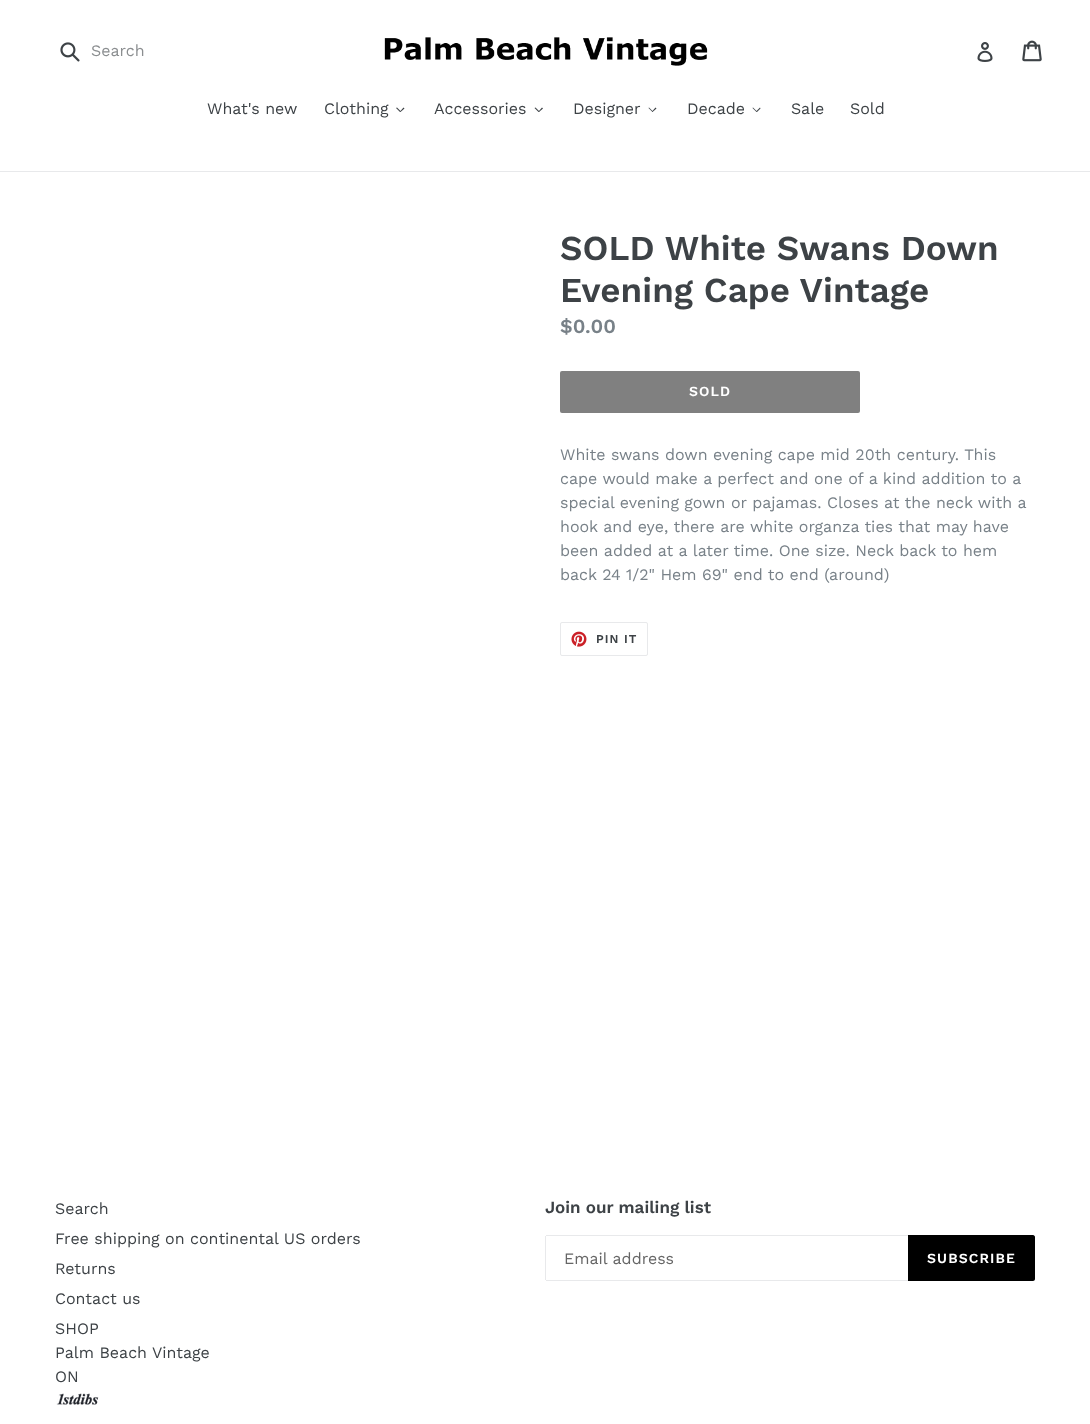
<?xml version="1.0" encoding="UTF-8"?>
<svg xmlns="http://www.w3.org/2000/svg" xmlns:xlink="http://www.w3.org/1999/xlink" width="1090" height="1424">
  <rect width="100%" height="100%" fill="#ffffff" />
  <image x="60" y="42" width="20" height="20" xlink:href="image1.png" />
  <image x="384" y="37" width="324" height="29" xlink:href="image2.png" />
  <image x="977" y="42" width="16" height="20" xlink:href="image3.png" />
  <image x="1022" y="40" width="20" height="22" xlink:href="image4.png" />
  <rect y="171" width="1090" height="1" fill="#e8e9eb" />
  <path d="M 403.5 107.5 l 1 1 l -4 3.5 l -0.5 -0.5 z" fill="#3d4246" />
  <path d="M 397 107.5 l 4 4 l -1 0.5 l -4 -4 z" fill="#3d4246" />
  <path d="M 542 107.5 l 1 1 l -4 3.5 l -0.5 -0.5 z" fill="#3d4246" />
  <path d="M 535.5 107.5 l 4 4 l -1 0.5 l -4 -4 z" fill="#3d4246" />
  <path d="M 655.5 107.5 l 1 1 l -4 3.5 l -0.5 -0.5 z" fill="#3d4246" />
  <path d="M 649 107.5 l 4 4 l -0.5 0.5 l -4 -4 z" fill="#3d4246" />
  <path d="M 760 107.5 l 0.5 1 l -3.5 3.5 l -1 -0.5 z" fill="#3d4246" />
  <path d="M 753 107.5 l 4 4 l -0.5 0.5 l -4 -4 z" fill="#3d4246" />
  <rect x="560" y="371" width="300" height="42" rx="2" fill="#808080" />
  <rect x="560.5" y="622.5" width="87" height="33" rx="1.5" fill="none" stroke="#e8e9eb" />
  <image x="571" y="631" width="16" height="16" xlink:href="image5.png" />
  <image x="56" y="1393" width="43" height="12" xlink:href="image6.png" />
  <rect x="546" y="1235" width="362" height="1" fill="#e8e9eb" />
  <rect x="546" y="1280" width="362" height="1" fill="#e8e9eb" />
  <rect x="545" y="1236" width="1" height="44" fill="#e8e9eb" />
  <path d="M 908 1235 h 125 c 1 0 2 1 2 2 v 42 c 0 1 -1 2 -2 2 h -125 z" fill="#000000" />
  <text x="91" y="56" style="font-family: Work Sans; font-size: 16px; fill: #8b8e90">Search</text>
  <text x="207" y="114" style="font-family: Work Sans; font-size: 16px; fill: #3d4246">What's new</text>
  <text x="324" y="114" style="font-family: Work Sans; font-size: 16px; fill: #3d4246">Clothing</text>
  <text x="434" y="114" style="font-family: Work Sans; font-size: 16px; fill: #3d4246">Accessories</text>
  <text x="573" y="114" style="font-family: Work Sans; font-size: 16px; fill: #3d4246">Designer</text>
  <text x="687" y="114" style="font-family: Work Sans; font-size: 16px; fill: #3d4246">Decade</text>
  <text x="791" y="114" style="font-family: Work Sans; font-size: 16px; fill: #3d4246">Sale</text>
  <text x="850" y="114" style="font-family: Work Sans; font-size: 16px; fill: #3d4246">Sold</text>
  <text x="560" y="260" style="font-family: Work Sans; font-size: 35px; font-weight: 600; fill: #3d4246">SOLD White Swans Down</text>
  <text x="560" y="302" style="font-family: Work Sans; font-size: 35px; font-weight: 600; fill: #3d4246">Evening Cape Vintage</text>
  <text x="560" y="333" style="font-family: Work Sans; font-size: 20px; font-weight: 600; fill: #788188">$0.00</text>
  <text x="689" y="396" style="font-family: Work Sans; font-size: 14px; font-weight: 600; letter-spacing: 1.1px; fill: #ffffff">SOLD</text>
  <text x="560" y="460" style="font-family: Work Sans; font-size: 16px; fill: #788188">White swans down evening cape mid 20th century. This</text>
  <text x="560" y="484" style="font-family: Work Sans; font-size: 16px; fill: #788188">cape would make a perfect and one of a kind addition to a</text>
  <text x="560" y="508" style="font-family: Work Sans; font-size: 16px; fill: #788188">special evening gown or pajamas. Closes at the neck with a</text>
  <text x="560" y="532" style="font-family: Work Sans; font-size: 16px; fill: #788188">hook and eye, there are white organza ties that may have</text>
  <text x="560" y="556" style="font-family: Work Sans; font-size: 16px; fill: #788188">been added at a later time. One size. Neck back to hem</text>
  <text x="560" y="580" style="font-family: Work Sans; font-size: 16px; fill: #788188">back 24 1/2" Hem 69" end to end (around)</text>
  <text x="596" y="643" style="font-family: Work Sans; font-size: 12px; font-weight: 600; letter-spacing: 1px; fill: #3d4246">PIN IT</text>
  <text x="55" y="1214" style="font-family: Work Sans; font-size: 16px; fill: #3d4246">Search</text>
  <text x="55" y="1244" style="font-family: Work Sans; font-size: 16px; fill: #3d4246">Free shipping on continental US orders</text>
  <text x="55" y="1274" style="font-family: Work Sans; font-size: 16px; fill: #3d4246">Returns</text>
  <text x="55" y="1304" style="font-family: Work Sans; font-size: 16px; fill: #3d4246">Contact us</text>
  <text x="55" y="1334" style="font-family: Work Sans; font-size: 16px; fill: #3d4246">SHOP</text>
  <text x="55" y="1358" style="font-family: Work Sans; font-size: 16px; fill: #3d4246">Palm Beach Vintage</text>
  <text x="55" y="1382" style="font-family: Work Sans; font-size: 16px; fill: #3d4246">ON</text>
  <text x="545" y="1213" style="font-family: Work Sans; font-size: 17px; font-weight: 600; fill: #3d4246">Join our mailing list</text>
  <text x="564" y="1264" style="font-family: Work Sans; font-size: 16px; fill: #666666">Email address</text>
  <text x="927" y="1263" style="font-family: Work Sans; font-size: 14px; font-weight: 600; letter-spacing: 1.1px; fill: #ffffff">SUBSCRIBE</text>
</svg>
